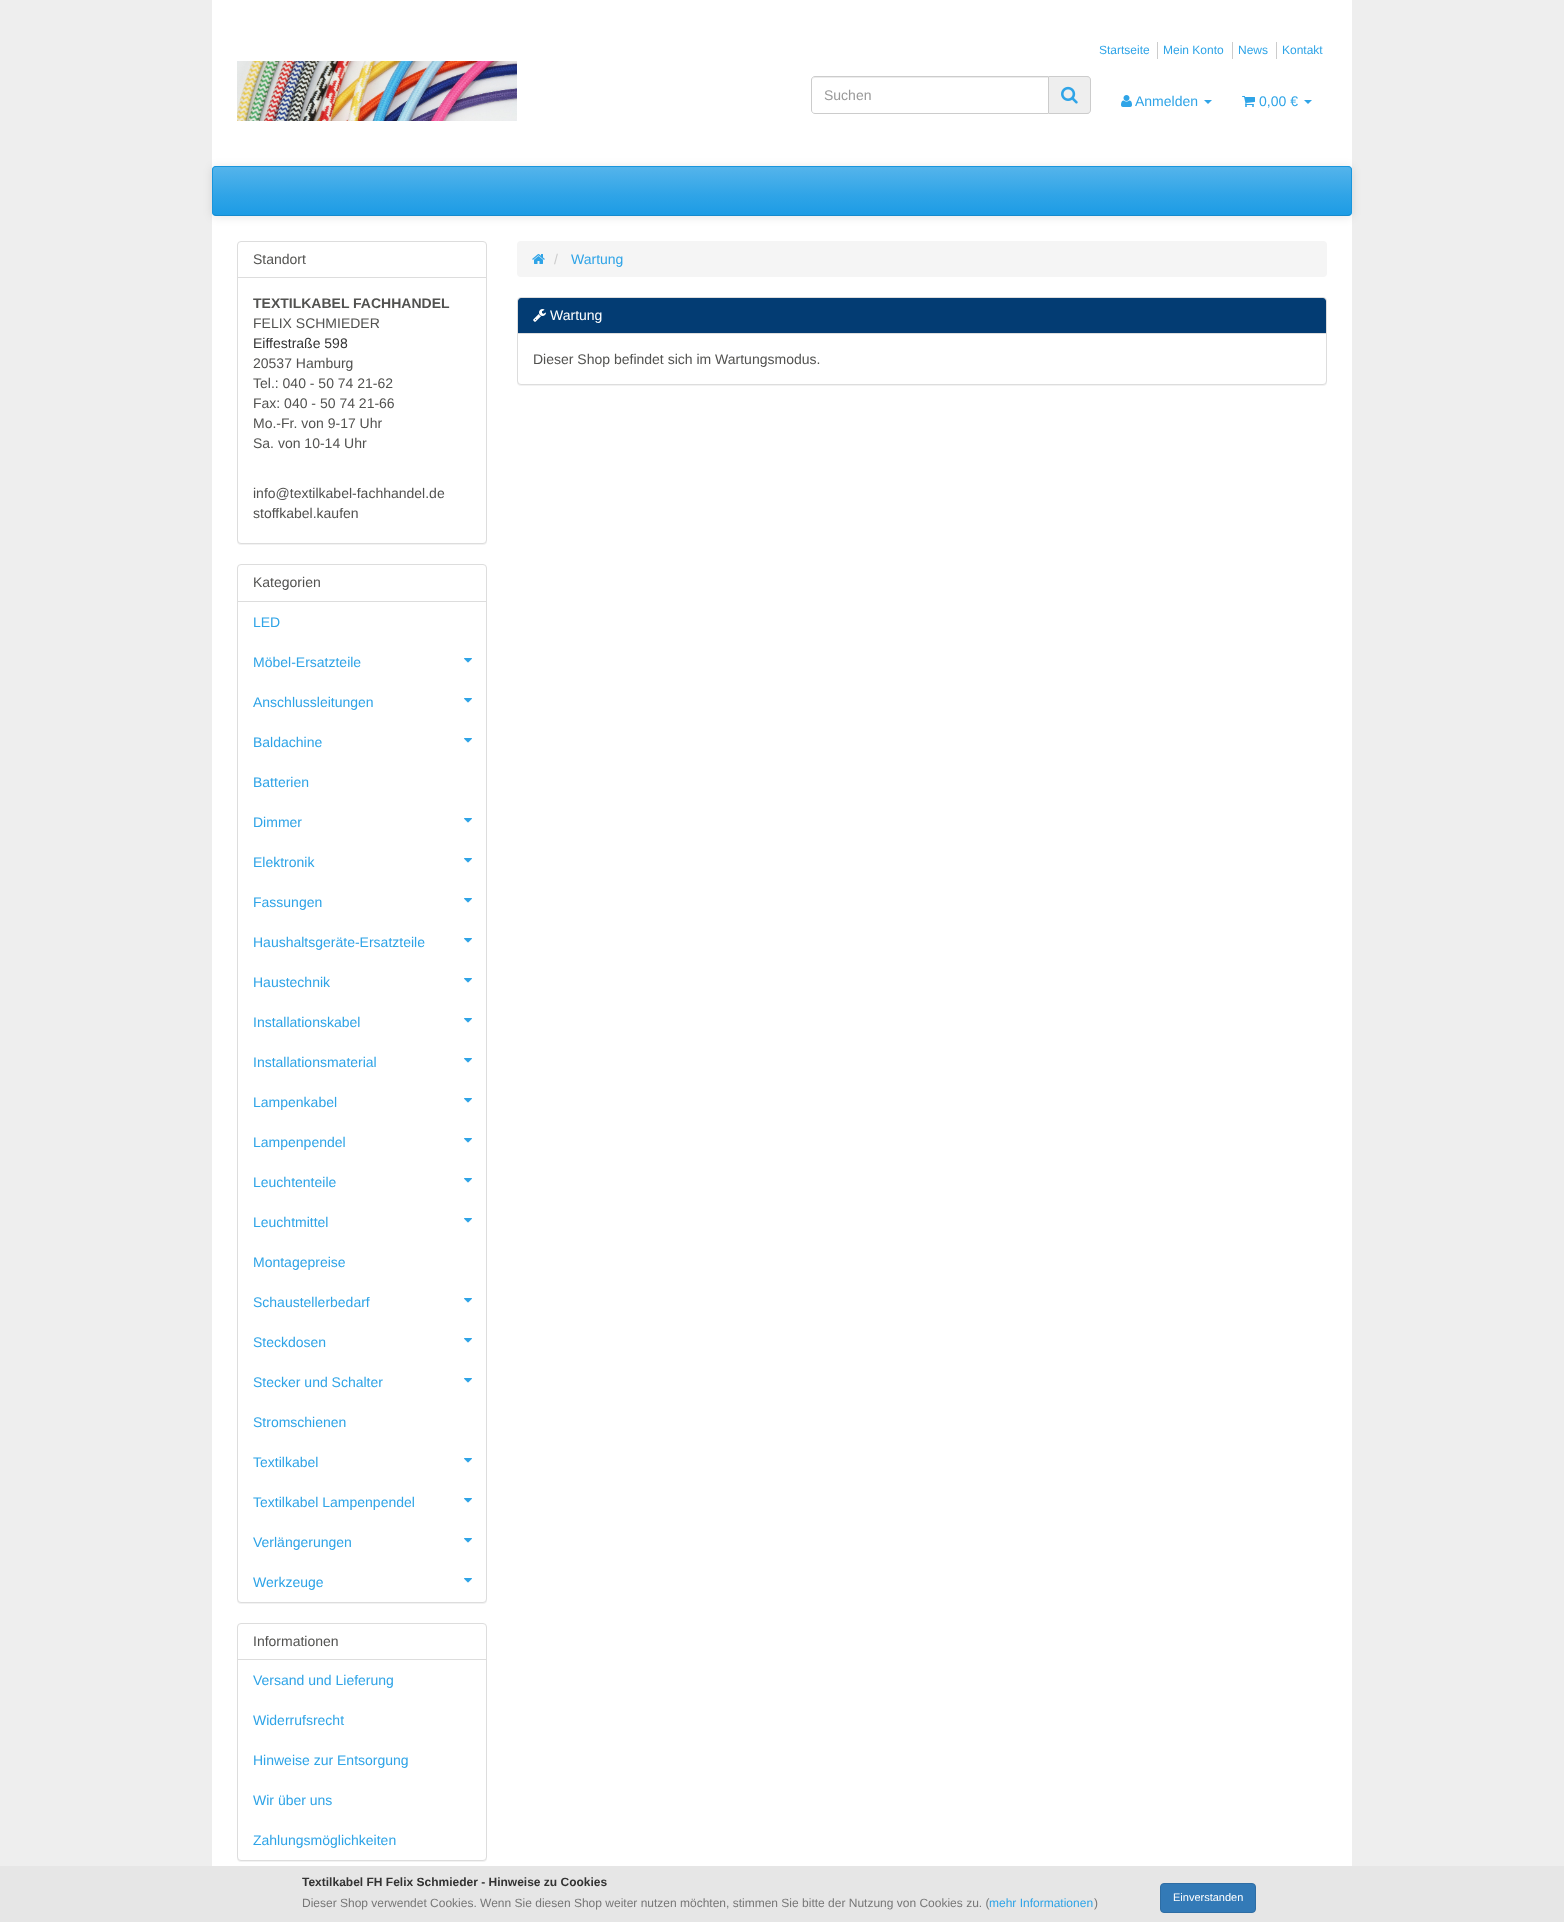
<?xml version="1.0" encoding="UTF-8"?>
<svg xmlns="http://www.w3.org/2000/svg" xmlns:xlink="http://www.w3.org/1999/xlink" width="1564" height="1922">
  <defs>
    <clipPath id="clip1"><rect x="212" y="166" width="1140" height="50" rx="4" /></clipPath>
    <linearGradient id="g1" gradientUnits="userSpaceOnUse" x1="782" y1="167" x2="782" y2="215"><stop offset="0" stop-color="#54b4eb" /><stop offset="0.6" stop-color="#2fa4e7" /><stop offset="1" stop-color="#1d9ce5" /></linearGradient>
  </defs>
  <rect width="100%" height="100%" fill="#eeeeee" />
  <rect x="212" width="1140" height="1866" fill="#ffffff" />
  <rect x="1157" y="42" width="1" height="17" fill="#cccccc" />
  <rect x="1232" y="42" width="1" height="17" fill="#cccccc" />
  <rect x="1276" y="42" width="1" height="17" fill="#cccccc" />
  <image x="237" y="61" width="280" height="60" xlink:href="image1.png" />
  <path d="M 815 78 h 233 v -1 h -233 c -2 0 -3 2 -3 4 c 0 -2 1 -3 3 -3 z" fill="#ececec" />
  <path d="M 815 76.5 h 233.5 v 37 h -233.5 c -2 0 -3.5 -1.5 -3.5 -3.5 v -30 c 0 -2 1.5 -3.5 3.5 -3.5 z" fill="none" stroke="#cccccc" />
  <path d="M 1049 76 h 38 c 2 0 4 2 4 4 v 30 c 0 2 -2 4 -4 4 h -38 z" fill="#eeeeee" />
  <path d="M 1049 76 h 38 c 2 0 4 2 4 4 v 30 c 0 2 -2 4 -4 4 h -38 z m 0 1 h 38 c 2 0 3 1 3 3 v 30 c 0 2 -1 3 -3 3 h -38 z" fill="#cccccc" fill-rule="evenodd" />
  <image x="1061" y="86" width="17" height="18" xlink:href="image2.png" />
  <image x="1121" y="95" width="11" height="12" xlink:href="image3.png" />
  <path d="M 1204 100 h 8 l -4 4 z" fill="#2fa4e7" />
  <image x="1242" y="96" width="13" height="11" xlink:href="image4.png" />
  <path d="M 1304 100 h 8 l -4 4 z" fill="#2fa4e7" />
  <rect x="212" y="167" width="1140" height="50" rx="4" fill="#000000" fill-opacity="0.1" filter="blur(5px)" />
  <rect x="212" y="166" width="1140" height="50" rx="4" fill="#2fa4e7" />
  <g clip-path="url(#clip1)">
    <rect x="213" y="167" width="1138" height="48" fill="url(#g1)" />
  </g>
  <path d="M 1350.5 214.5 l -2.5 1 h -1132 l -2.5 -1" fill="none" stroke="#178acc" />
  <path d="M 213.5 214.5 c -0.5 -0.5 -1 -1.5 -1 -2.5 v -42 c 0 -1 0.5 -2 1 -2.5 c 0.5 -0.5 1.5 -1 2.5 -1 h 1132 c 1 0 2 0.5 2.5 1 c 0.5 0.5 1 1.5 1 2.5 v 42 c 0 1 -0.5 2 -1 2.5" fill="none" stroke="#1995dc" />
  <rect x="237" y="242" width="250" height="303" rx="4" fill="#000000" fill-opacity="0.05" filter="blur(0.5px)" />
  <rect x="237.5" y="241.5" width="249" height="302" rx="3.5" fill="#ffffff" stroke="#dddddd" />
  <rect x="238" y="277" width="248" height="1" fill="#dddddd" />
  <rect x="237" y="565" width="250" height="1039" rx="4" fill="#000000" fill-opacity="0.05" filter="blur(0.5px)" />
  <rect x="237.5" y="564.5" width="249" height="1038" rx="3.5" fill="#ffffff" stroke="#dddddd" />
  <rect x="238" y="601" width="248" height="1" fill="#dddddd" />
  <image x="464" y="658" width="8" height="5" xlink:href="image5.png" />
  <image x="464" y="698" width="8" height="5" xlink:href="image5.png" />
  <image x="464" y="738" width="8" height="5" xlink:href="image5.png" />
  <image x="464" y="818" width="8" height="5" xlink:href="image5.png" />
  <image x="464" y="858" width="8" height="5" xlink:href="image5.png" />
  <image x="464" y="898" width="8" height="5" xlink:href="image5.png" />
  <image x="464" y="938" width="8" height="5" xlink:href="image5.png" />
  <image x="464" y="978" width="8" height="5" xlink:href="image5.png" />
  <image x="464" y="1018" width="8" height="5" xlink:href="image5.png" />
  <image x="464" y="1058" width="8" height="5" xlink:href="image5.png" />
  <image x="464" y="1098" width="8" height="5" xlink:href="image5.png" />
  <image x="464" y="1138" width="8" height="5" xlink:href="image5.png" />
  <image x="464" y="1178" width="8" height="5" xlink:href="image5.png" />
  <image x="464" y="1218" width="8" height="5" xlink:href="image5.png" />
  <image x="464" y="1298" width="8" height="5" xlink:href="image5.png" />
  <image x="464" y="1338" width="8" height="5" xlink:href="image5.png" />
  <image x="464" y="1378" width="8" height="5" xlink:href="image5.png" />
  <image x="464" y="1458" width="8" height="5" xlink:href="image5.png" />
  <image x="464" y="1498" width="8" height="5" xlink:href="image5.png" />
  <image x="464" y="1538" width="8" height="5" xlink:href="image5.png" />
  <image x="464" y="1578" width="8" height="5" xlink:href="image5.png" />
  <rect x="237" y="1624" width="250" height="238" rx="4" fill="#000000" fill-opacity="0.05" filter="blur(0.5px)" />
  <rect x="237.5" y="1623.5" width="249" height="237" rx="3.5" fill="#ffffff" stroke="#dddddd" />
  <rect x="238" y="1659" width="248" height="1" fill="#dddddd" />
  <rect x="517" y="241" width="810" height="36" rx="4" fill="#f5f5f5" />
  <image x="532" y="254" width="13" height="10" xlink:href="image6.png" />
  <rect x="517" y="298" width="810" height="88" rx="4" fill="#000000" fill-opacity="0.05" filter="blur(0.5px)" />
  <rect x="517.5" y="297.5" width="809" height="87" rx="3.5" fill="#ffffff" stroke="#dddddd" />
  <path d="M 521 298 h 802 c 1.5 0 3 1.5 3 3 v 33 h -808 v -33 c 0 -1.5 1.5 -3 3 -3 z" fill="#033c73" />
  <rect x="518" y="333" width="808" height="1" fill="#dddddd" />
  <image x="533" y="309" width="13" height="13" xlink:href="image7.png" />
  <rect y="1866" width="1564" height="56" fill="#e6e6e6" />
  <rect x="1160.5" y="1883.5" width="95" height="29" rx="3.5" fill="#337ab7" stroke="#2e6da4" />
  <text x="1099" y="54" style="font-family: Liberation Sans; font-size: 12px; fill: #2fa4e7">Startseite</text>
  <text x="1163" y="54" style="font-family: Liberation Sans; font-size: 12px; fill: #2fa4e7">Mein Konto</text>
  <text x="1238" y="54" style="font-family: Liberation Sans; font-size: 12px; fill: #2fa4e7">News</text>
  <text x="1282" y="54" style="font-family: Liberation Sans; font-size: 12px; fill: #2fa4e7">Kontakt</text>
  <text x="824" y="100" style="font-family: Liberation Sans; font-size: 14px; fill: #999999">Suchen</text>
  <text x="1135" y="106" style="font-family: Liberation Sans; font-size: 14px; fill: #2fa4e7">Anmelden</text>
  <text x="1259" y="106" style="font-family: Liberation Sans; font-size: 14px; fill: #2fa4e7">0,00 €</text>
  <text x="253" y="264" style="font-family: Liberation Sans; font-size: 14px; fill: #525250">Standort</text>
  <text x="253" y="308" style="font-family: Liberation Sans; font-size: 14px; font-weight: bold; fill: #525250">TEXTILKABEL FACHHANDEL</text>
  <text x="253" y="328" style="font-family: Liberation Sans; font-size: 14px; fill: #525250">FELIX SCHMIEDER</text>
  <text x="253" y="348" style="font-family: Liberation Sans; font-size: 14px; fill: #333333">Eiffestraße 598</text>
  <text x="253" y="368" style="font-family: Liberation Sans; font-size: 14px; fill: #525250">20537 Hamburg</text>
  <text x="253" y="388" style="font-family: Liberation Sans; font-size: 14px; fill: #525250">Tel.: 040 - 50 74 21-62</text>
  <text x="253" y="408" style="font-family: Liberation Sans; font-size: 14px; fill: #525250">Fax: 040 - 50 74 21-66</text>
  <text x="253" y="428" style="font-family: Liberation Sans; font-size: 14px; fill: #525250">Mo.-Fr. von 9-17 Uhr</text>
  <text x="253" y="448" style="font-family: Liberation Sans; font-size: 14px; fill: #525250">Sa. von 10-14 Uhr</text>
  <text x="253" y="498" style="font-family: Liberation Sans; font-size: 14px; fill: #525250">info@textilkabel-fachhandel.de</text>
  <text x="253" y="518" style="font-family: Liberation Sans; font-size: 14px; fill: #525250">stoffkabel.kaufen</text>
  <text x="253" y="587" style="font-family: Liberation Sans; font-size: 14px; fill: #525250">Kategorien</text>
  <text x="253" y="627" style="font-family: Liberation Sans; font-size: 14px; fill: #2fa4e7">LED</text>
  <text x="253" y="667" style="font-family: Liberation Sans; font-size: 14px; fill: #2fa4e7">Möbel-Ersatzteile</text>
  <text x="253" y="707" style="font-family: Liberation Sans; font-size: 14px; fill: #2fa4e7">Anschlussleitungen</text>
  <text x="253" y="747" style="font-family: Liberation Sans; font-size: 14px; fill: #2fa4e7">Baldachine</text>
  <text x="253" y="787" style="font-family: Liberation Sans; font-size: 14px; fill: #2fa4e7">Batterien</text>
  <text x="253" y="827" style="font-family: Liberation Sans; font-size: 14px; fill: #2fa4e7">Dimmer</text>
  <text x="253" y="867" style="font-family: Liberation Sans; font-size: 14px; fill: #2fa4e7">Elektronik</text>
  <text x="253" y="907" style="font-family: Liberation Sans; font-size: 14px; fill: #2fa4e7">Fassungen</text>
  <text x="253" y="947" style="font-family: Liberation Sans; font-size: 14px; fill: #2fa4e7">Haushaltsgeräte-Ersatzteile</text>
  <text x="253" y="987" style="font-family: Liberation Sans; font-size: 14px; fill: #2fa4e7">Haustechnik</text>
  <text x="253" y="1027" style="font-family: Liberation Sans; font-size: 14px; fill: #2fa4e7">Installationskabel</text>
  <text x="253" y="1067" style="font-family: Liberation Sans; font-size: 14px; fill: #2fa4e7">Installationsmaterial</text>
  <text x="253" y="1107" style="font-family: Liberation Sans; font-size: 14px; fill: #2fa4e7">Lampenkabel</text>
  <text x="253" y="1147" style="font-family: Liberation Sans; font-size: 14px; fill: #2fa4e7">Lampenpendel</text>
  <text x="253" y="1187" style="font-family: Liberation Sans; font-size: 14px; fill: #2fa4e7">Leuchtenteile</text>
  <text x="253" y="1227" style="font-family: Liberation Sans; font-size: 14px; fill: #2fa4e7">Leuchtmittel</text>
  <text x="253" y="1267" style="font-family: Liberation Sans; font-size: 14px; fill: #2fa4e7">Montagepreise</text>
  <text x="253" y="1307" style="font-family: Liberation Sans; font-size: 14px; fill: #2fa4e7">Schaustellerbedarf</text>
  <text x="253" y="1347" style="font-family: Liberation Sans; font-size: 14px; fill: #2fa4e7">Steckdosen</text>
  <text x="253" y="1387" style="font-family: Liberation Sans; font-size: 14px; fill: #2fa4e7">Stecker und Schalter</text>
  <text x="253" y="1427" style="font-family: Liberation Sans; font-size: 14px; fill: #2fa4e7">Stromschienen</text>
  <text x="253" y="1467" style="font-family: Liberation Sans; font-size: 14px; fill: #2fa4e7">Textilkabel</text>
  <text x="253" y="1507" style="font-family: Liberation Sans; font-size: 14px; fill: #2fa4e7">Textilkabel Lampenpendel</text>
  <text x="253" y="1547" style="font-family: Liberation Sans; font-size: 14px; fill: #2fa4e7">Verlängerungen</text>
  <text x="253" y="1587" style="font-family: Liberation Sans; font-size: 14px; fill: #2fa4e7">Werkzeuge</text>
  <text x="253" y="1646" style="font-family: Liberation Sans; font-size: 14px; fill: #525250">Informationen</text>
  <text x="253" y="1685" style="font-family: Liberation Sans; font-size: 14px; fill: #2fa4e7">Versand und Lieferung</text>
  <text x="253" y="1725" style="font-family: Liberation Sans; font-size: 14px; fill: #2fa4e7">Widerrufsrecht</text>
  <text x="253" y="1765" style="font-family: Liberation Sans; font-size: 14px; fill: #2fa4e7">Hinweise zur Entsorgung</text>
  <text x="253" y="1805" style="font-family: Liberation Sans; font-size: 14px; fill: #2fa4e7">Wir über uns</text>
  <text x="253" y="1845" style="font-family: Liberation Sans; font-size: 14px; fill: #2fa4e7">Zahlungsmöglichkeiten</text>
  <text x="554" y="264" style="font-family: Liberation Sans; font-size: 14px; fill: #cccccc">/</text>
  <text x="571" y="264" style="font-family: Liberation Sans; font-size: 14px; fill: #2fa4e7">Wartung</text>
  <text x="550" y="320" style="font-family: Liberation Sans; font-size: 14px; fill: #ffffff">Wartung</text>
  <text x="533" y="364" style="font-family: Liberation Sans; font-size: 14px; fill: #525250">Dieser Shop befindet sich im Wartungsmodus.</text>
  <text x="302" y="1886" style="font-family: Liberation Sans; font-size: 12px; font-weight: bold; fill: #333333">Textilkabel FH Felix Schmieder - Hinweise zu Cookies</text>
  <text x="302" y="1907" style="font-family: Liberation Sans; font-size: 12px; fill: #777777">Dieser Shop verwendet Cookies. Wenn Sie diesen Shop weiter nutzen möchten, stimmen Sie bitte der Nutzung von Cookies zu. (</text>
  <text x="989" y="1907" style="font-family: Liberation Sans; font-size: 12px; fill: #2fa4e7">mehr Informationen</text>
  <text x="1094" y="1907" style="font-family: Liberation Sans; font-size: 12px; fill: #777777">)</text>
  <text x="1173" y="1901" style="font-family: Liberation Sans; font-size: 11px; fill: #ffffff">Einverstanden</text>
</svg>
